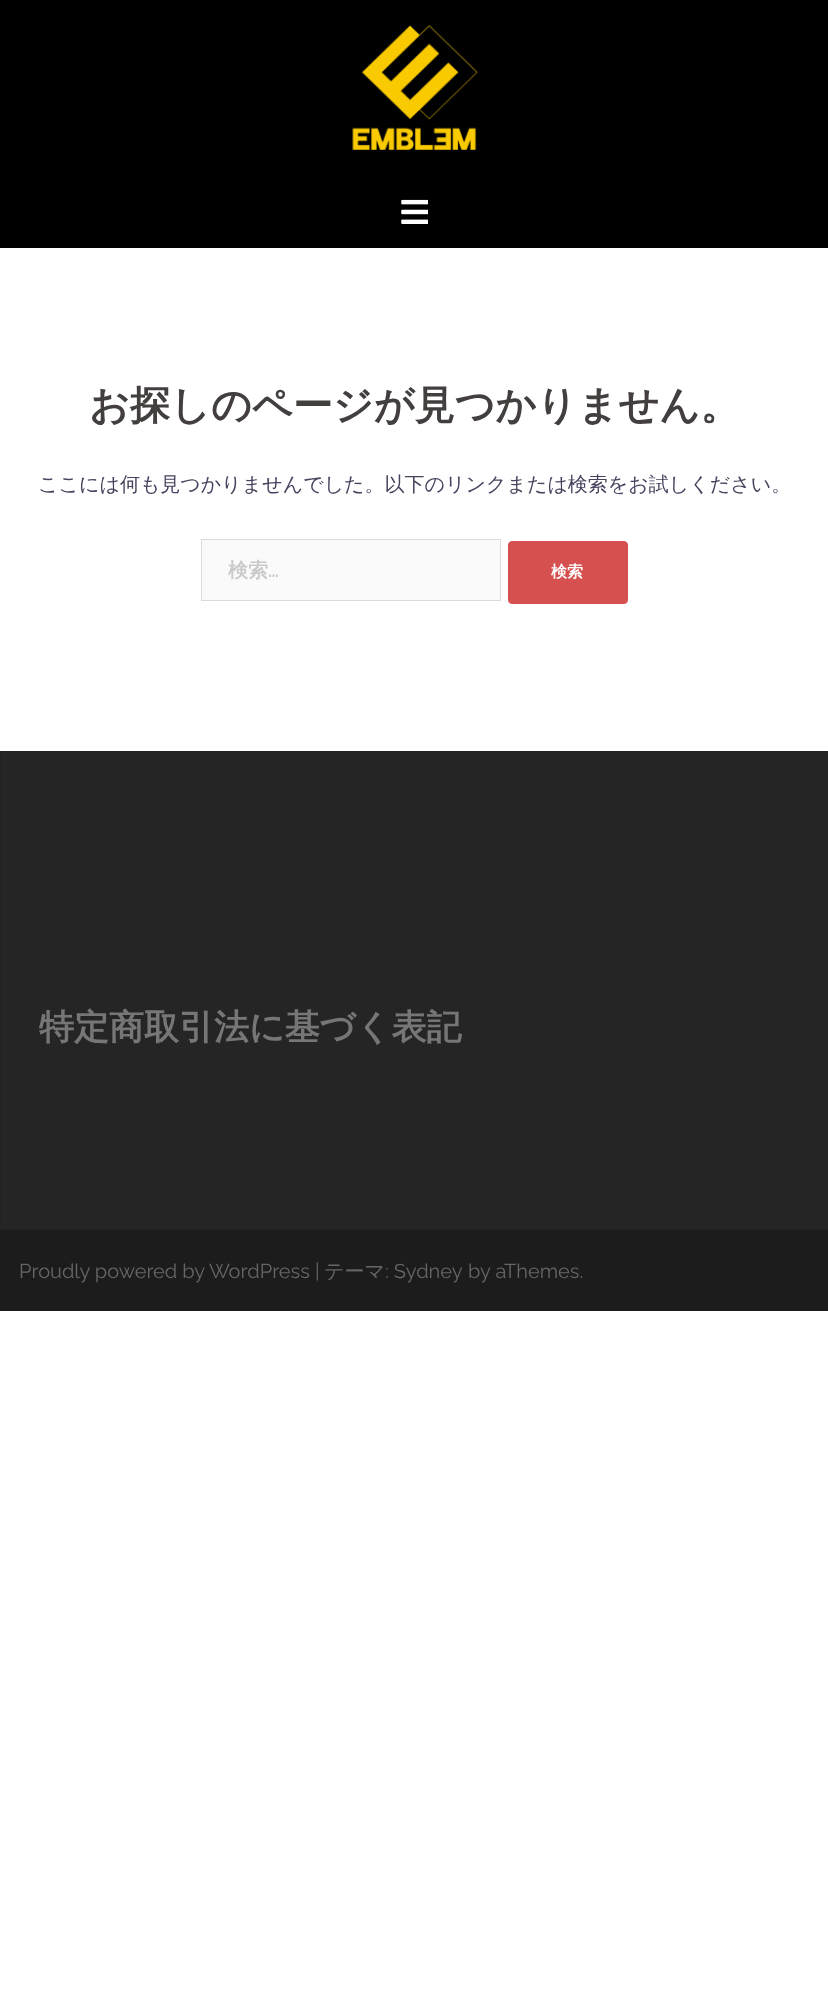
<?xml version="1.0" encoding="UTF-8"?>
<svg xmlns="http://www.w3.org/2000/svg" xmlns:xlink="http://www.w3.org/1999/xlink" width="828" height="2002">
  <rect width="100%" height="100%" fill="#ffffff" />
  <rect width="828" height="248" fill="#000000" />
  <image x="352" y="25" width="126" height="125" xlink:href="image1.png" />
  <image x="401" y="199" width="27" height="25" xlink:href="image2.png" />
  <rect x="201.5" y="539.5" width="299" height="61" fill="#fafafa" stroke="#dbdbdb" />
  <rect x="508.5" y="541.5" width="119" height="62" rx="3.5" fill="#d65050" stroke="#d65050" />
  <rect x="0.5" y="751.5" width="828" height="478" fill="#252525" stroke="#212121" />
  <rect y="1230" width="828" height="81" fill="#1c1c1c" />
  <text x="89" y="419" style="font-family: WenQuanYi Zen Hei; font-size: 40px; font-weight: bold; fill: #443f3f">お探しのページが見つかりません。</text>
  <text x="38" y="491" style="font-family: WenQuanYi Zen Hei; font-size: 20px; font-weight: 500; fill: #47425d">ここには何も見つかりませんでした。以下のリンクまたは検索をお試しください。</text>
  <text x="228" y="577" style="font-family: WenQuanYi Zen Hei; font-size: 20px; font-weight: bold; fill: #cacaca">検索</text>
  <text x="268" y="577" style="font-family: Raleway; font-size: 20px; font-weight: 600; fill: #cacaca">…</text>
  <text x="551" y="577" style="font-family: WenQuanYi Zen Hei; font-size: 16px; font-weight: bold; fill: #ffffff">検索</text>
  <text x="39" y="1039" style="font-family: WenQuanYi Zen Hei; font-size: 35px; font-weight: bold; fill: #767676">特定商取引法に基づく表記</text>
  <text x="19" y="1278" style="font-family: Raleway; font-size: 20px; fill: #666666">Proudly powered by WordPress |</text>
  <text x="324" y="1278" style="font-family: WenQuanYi Zen Hei; font-size: 20px; font-weight: 500; fill: #666666">テーマ</text>
  <text x="385" y="1278" style="font-family: Raleway; font-size: 20px; fill: #666666">: Sydney</text>
  <text x="468" y="1278" style="font-family: Raleway; font-size: 20px; fill: #666666">by aThemes.</text>
</svg>
